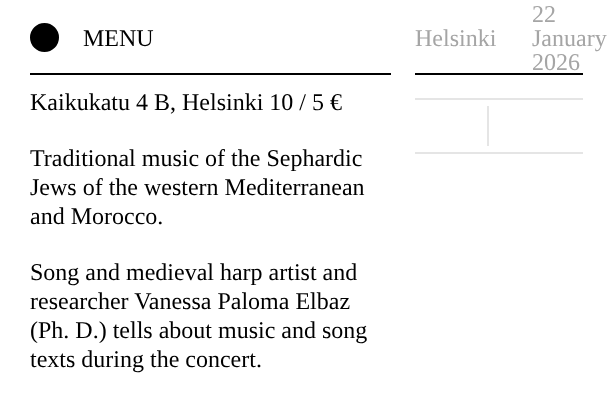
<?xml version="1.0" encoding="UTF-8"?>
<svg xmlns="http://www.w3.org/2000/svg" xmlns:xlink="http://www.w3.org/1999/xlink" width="613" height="394">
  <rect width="100%" height="100%" fill="#ffffff" />
  <rect x="30" y="73" width="361" height="2" fill="#000000" />
  <circle cx="44.5" cy="37.5" r="13.5" fill="#000000" stroke="#000000" stroke-width="2" />
  <rect x="415" y="73" width="168" height="2" fill="#000000" />
  <rect x="415" y="98" width="168" height="2" fill="#e5e5e5" />
  <rect x="415" y="152" width="168" height="2" fill="#e5e5e5" />
  <rect x="487" y="106" width="2" height="40" fill="#e5e5e5" />
  <text x="83" y="46" style="font-family: Liberation Serif; font-size: 24px; fill: #000000">MENU</text>
  <text x="415" y="46" style="font-family: Liberation Serif; font-size: 24px; fill: #a5a5a5">Helsinki</text>
  <text x="532" y="22" style="font-family: Liberation Serif; font-size: 24px; fill: #a5a5a5">22</text>
  <text x="532" y="46" style="font-family: Liberation Serif; font-size: 24px; fill: #a5a5a5">January</text>
  <text x="532" y="70" style="font-family: Liberation Serif; font-size: 24px; fill: #a5a5a5">2026</text>
  <text x="30" y="110" style="font-family: Liberation Serif; font-size: 24px; fill: #000000">Kaikukatu 4 B, Helsinki 10 / 5 €</text>
  <text x="30" y="166" style="font-family: Liberation Serif; font-size: 24px; fill: #000000">Traditional music of the Sephardic</text>
  <text x="30" y="195" style="font-family: Liberation Serif; font-size: 24px; fill: #000000">Jews of the western Mediterranean</text>
  <text x="30" y="224" style="font-family: Liberation Serif; font-size: 24px; fill: #000000">and Morocco.</text>
  <text x="30" y="280" style="font-family: Liberation Serif; font-size: 24px; fill: #000000">Song and medieval harp artist and</text>
  <text x="30" y="309" style="font-family: Liberation Serif; font-size: 24px; fill: #000000">researcher Vanessa Paloma Elbaz</text>
  <text x="30" y="338" style="font-family: Liberation Serif; font-size: 24px; fill: #000000">(Ph. D.) tells about music and song</text>
  <text x="30" y="367" style="font-family: Liberation Serif; font-size: 24px; fill: #000000">texts during the concert.</text>
</svg>
